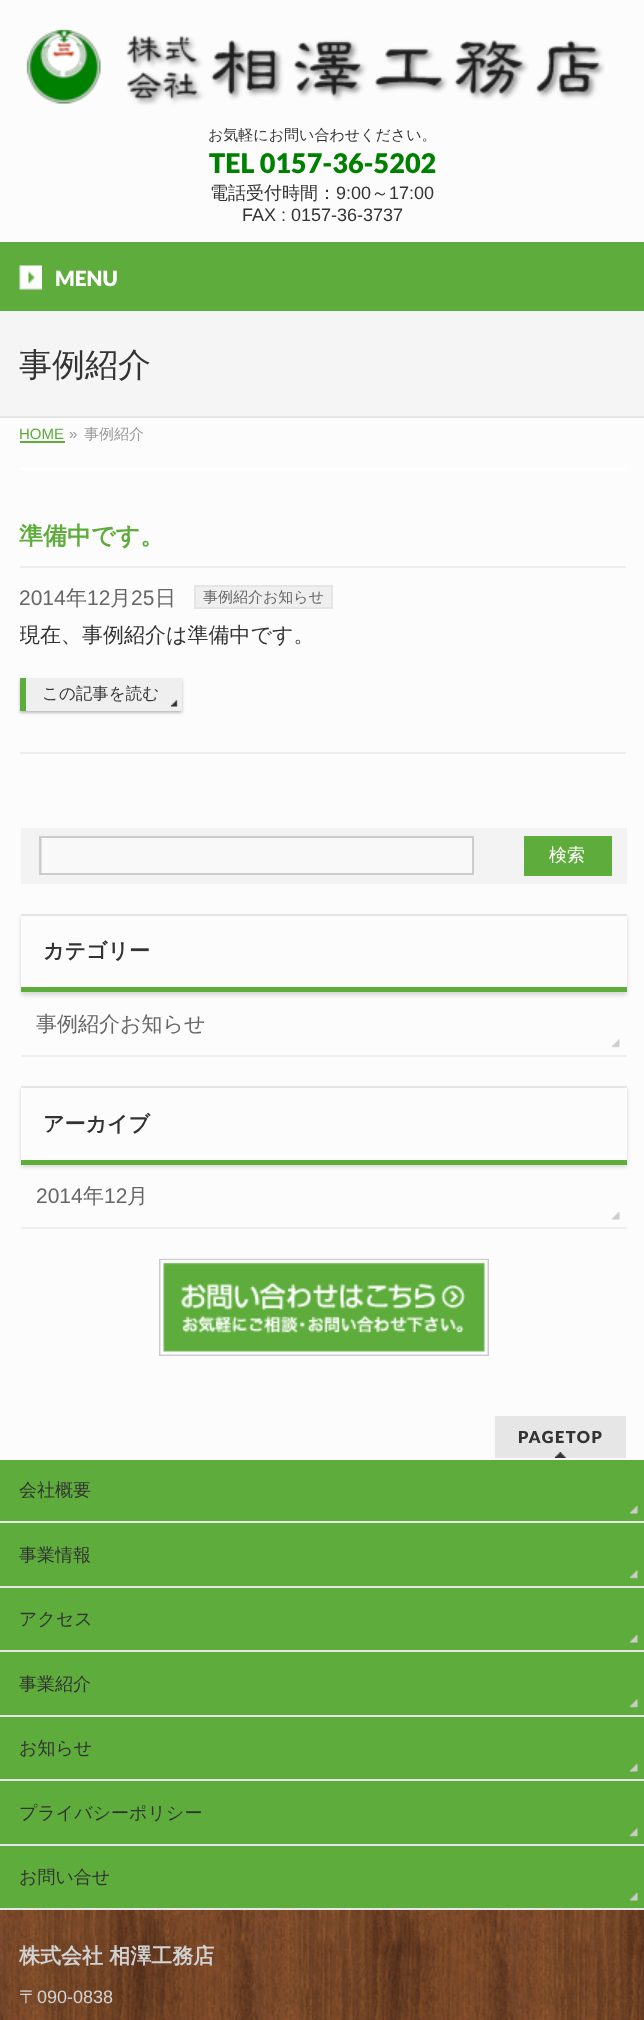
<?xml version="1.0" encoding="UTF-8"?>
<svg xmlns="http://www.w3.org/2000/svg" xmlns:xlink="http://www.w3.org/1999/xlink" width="644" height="2020">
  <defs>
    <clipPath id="clip1"><rect x="41" y="837" width="432" height="36" /></clipPath>
    <clipPath id="clip2"><path d="M 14 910 h 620 v 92 h -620 z m 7 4 h 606 v 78 h -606 z" clip-rule="evenodd" /></clipPath>
    <clipPath id="clip3"><path d="M 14 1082 h 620 v 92 h -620 z m 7 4 h 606 v 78 h -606 z" clip-rule="evenodd" /></clipPath>
    <clipPath id="clip4"><rect x="20" y="522" width="606" height="200" /></clipPath>
  </defs>
  <rect width="100%" height="100%" fill="#fcfcfc" />
  <image x="26" y="29" width="579" height="77" xlink:href="image1.png" />
  <rect y="242" width="644" height="69" fill="#5ead3c" />
  <image x="19" y="265" width="23" height="25" xlink:href="image2.png" />
  <rect y="311" width="644" height="105" fill="#f5f5f5" />
  <rect y="416" width="644" height="2" fill="#e5e5e5" />
  <rect x="20" y="468" width="606" height="2" fill="#ffffff" />
  <rect x="20" y="441" width="45" height="2" fill="#5ead3c" />
  <rect x="20" y="752" width="606" height="2" fill="#eeeeee" />
  <rect x="20" y="566" width="606" height="2" fill="#eeeeee" />
  <rect x="195" y="586" width="137" height="22" fill="#efefef" stroke="#e5e5e5" stroke-width="2" />
  <rect x="20" y="680" width="162" height="33" fill="#000000" fill-opacity="0.25" filter="blur(1.5px)" />
  <rect x="26" y="678" width="156" height="33" fill="#efefef" />
  <image x="171" y="700" width="7" height="7" xlink:href="image3.png" />
  <rect x="20" y="678" width="6" height="33" fill="#5ead3c" />
  <rect x="21" y="828" width="606" height="56" fill="#f3f3f3" />
  <rect x="42" y="838" width="430" height="35" fill="#f9f9f9" />
  <g clip-path="url(#clip1)">
    <path d="M -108 688 h 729 v 334 h -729 z m 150 150 h 432 v 36 h -432 z" fill="#e0e0e0" fill-rule="evenodd" />
  </g>
  <rect x="40" y="837" width="433" height="37" fill="none" stroke="#cccccc" stroke-width="2" />
  <rect x="524" y="836" width="88" height="40" fill="#5ead3c" />
  <g clip-path="url(#clip2)">
    <rect x="21" y="917" width="606" height="78" fill="#000000" fill-opacity="0.15" filter="blur(2px)" />
  </g>
  <rect x="21" y="914" width="606" height="2" fill="#e5e5e5" />
  <rect x="21" y="987" width="606" height="5" fill="#5ead3c" />
  <rect x="21" y="1055" width="606" height="2" fill="#eeeeee" />
  <image x="612" y="1039" width="8" height="9" xlink:href="image4.png" />
  <g clip-path="url(#clip3)">
    <rect x="21" y="1089" width="606" height="78" fill="#000000" fill-opacity="0.15" filter="blur(2px)" />
  </g>
  <rect x="21" y="1086" width="606" height="2" fill="#e5e5e5" />
  <rect x="21" y="1160" width="606" height="5" fill="#5ead3c" />
  <rect x="21" y="1227" width="606" height="2" fill="#eeeeee" />
  <image x="612" y="1212" width="8" height="8" xlink:href="image5.png" />
  <rect x="163" y="1262" width="322" height="90" fill="#5ead3c" />
  <image x="159" y="1258" width="330" height="98" xlink:href="image6.png" />
  <rect x="495" y="1416" width="131" height="42" fill="#e6e6e6" />
  <image x="555" y="1452" width="11" height="6" xlink:href="image7.png" />
  <rect y="1460" width="644" height="448" fill="#5ead3c" />
  <rect y="1458" width="644" height="2" fill="#ffffff" />
  <image x="630" y="1506" width="8" height="8" xlink:href="image8.png" />
  <rect y="1521" width="644" height="2" fill="#e6e6e6" />
  <image x="630" y="1570" width="8" height="9" xlink:href="image9.png" />
  <rect y="1586" width="644" height="2" fill="#e6e6e6" />
  <image x="630" y="1635" width="8" height="8" xlink:href="image8.png" />
  <rect y="1650" width="644" height="2" fill="#e6e6e6" />
  <image x="630" y="1699" width="8" height="9" xlink:href="image9.png" />
  <rect y="1715" width="644" height="2" fill="#e6e6e6" />
  <image x="630" y="1764" width="8" height="8" xlink:href="image8.png" />
  <rect y="1779" width="644" height="2" fill="#e6e6e6" />
  <image x="630" y="1828" width="8" height="9" xlink:href="image9.png" />
  <rect y="1844" width="644" height="2" fill="#e6e6e6" />
  <image x="630" y="1893" width="8" height="8" xlink:href="image8.png" />
  <rect y="1908" width="644" height="2" fill="#e6e6e6" />
  <image x="0" y="1910" width="644" height="110" xlink:href="image10.png" />
  <text x="208" y="140" style="font-family: WenQuanYi Zen Hei; font-size: 15px; font-weight: 500; fill: #333333">お気軽にお問い合わせください。</text>
  <text x="209" y="173" style="font-family: Lato; font-size: 27px; font-weight: 900; fill: #008000">TEL 0157-36-5202</text>
  <text x="210" y="199" style="font-family: WenQuanYi Zen Hei; font-size: 18px; font-weight: 500; fill: #333333">電話受付時間：</text>
  <text x="336" y="199" style="font-family: Liberation Sans; font-size: 18px; fill: #333333">9:00</text>
  <text x="371" y="199" style="font-family: WenQuanYi Zen Hei; font-size: 18px; font-weight: 500; fill: #333333">～</text>
  <text x="389" y="199" style="font-family: Liberation Sans; font-size: 18px; fill: #333333">17:00</text>
  <text x="242" y="221" style="font-family: Liberation Sans; font-size: 18px; fill: #333333">FAX : 0157-36-3737</text>
  <text x="55" y="286" style="font-family: Lato; font-size: 21px; font-weight: 900; fill: #ffffff">MENU</text>
  <text x="19" y="376" style="font-family: WenQuanYi Zen Hei; font-size: 33px; font-weight: 500; fill: #333333">事例紹介</text>
  <text x="19" y="439" style="font-family: Liberation Sans; font-size: 15px; fill: #5ead3c">HOME</text>
  <text x="69" y="439" style="font-family: Liberation Sans; font-size: 15px; fill: #999999">»</text>
  <text x="84" y="439" style="font-family: WenQuanYi Zen Hei; font-size: 15px; font-weight: 500; fill: #999999">事例紹介</text>
  <text x="19" y="544" style="font-family: WenQuanYi Zen Hei; font-size: 24px; font-weight: bold; fill: #5ead3c">準備中です。</text>
  <text x="19" y="605" style="font-family: Liberation Sans; font-size: 21px; fill: #666666">2014</text>
  <text x="66" y="605" style="font-family: WenQuanYi Zen Hei; font-size: 21px; font-weight: 500; fill: #666666">年</text>
  <text x="87" y="605" style="font-family: Liberation Sans; font-size: 21px; fill: #666666">12</text>
  <text x="110" y="605" style="font-family: WenQuanYi Zen Hei; font-size: 21px; font-weight: 500; fill: #666666">月</text>
  <text x="131" y="605" style="font-family: Liberation Sans; font-size: 21px; fill: #666666">25</text>
  <text x="155" y="605" style="font-family: WenQuanYi Zen Hei; font-size: 21px; font-weight: 500; fill: #666666">日</text>
  <text x="203" y="602" style="font-family: WenQuanYi Zen Hei; font-size: 15px; font-weight: 500; fill: #666666">事例紹介お知らせ</text>
  <g clip-path="url(#clip4)">
    <text x="19" y="642" style="font-family: WenQuanYi Zen Hei; font-size: 21px; font-weight: 500; fill: #333333">現在、事例紹介は準備中です。</text>
  </g>
  <text x="42" y="699" style="font-family: WenQuanYi Zen Hei; font-size: 16.5px; font-weight: 500; fill: #333333">この記事を読む</text>
  <text x="549" y="861" style="font-family: WenQuanYi Zen Hei; font-size: 18px; font-weight: 500; fill: #ffffff">検索</text>
  <text x="43" y="958" style="font-family: WenQuanYi Zen Hei; font-size: 21px; font-weight: bold; fill: #333333">カテゴリー</text>
  <text x="36" y="1031" style="font-family: WenQuanYi Zen Hei; font-size: 21px; font-weight: 500; fill: #666666">事例紹介お知らせ</text>
  <text x="43" y="1131" style="font-family: WenQuanYi Zen Hei; font-size: 21px; font-weight: bold; fill: #333333">アーカイブ</text>
  <text x="36" y="1203" style="font-family: Liberation Sans; font-size: 21px; fill: #666666">2014</text>
  <text x="83" y="1203" style="font-family: WenQuanYi Zen Hei; font-size: 21px; font-weight: 500; fill: #666666">年</text>
  <text x="104" y="1203" style="font-family: Liberation Sans; font-size: 21px; fill: #666666">12</text>
  <text x="127" y="1203" style="font-family: WenQuanYi Zen Hei; font-size: 21px; font-weight: 500; fill: #666666">月</text>
  <text x="518" y="1443" style="font-family: Lato; font-size: 16.5px; font-weight: 900; letter-spacing: 1.5px; fill: #333333">PAGETOP</text>
  <text x="19" y="1496" style="font-family: WenQuanYi Zen Hei; font-size: 18px; font-weight: 500; fill: #333333">会社概要</text>
  <text x="19" y="1561" style="font-family: WenQuanYi Zen Hei; font-size: 18px; font-weight: 500; fill: #333333">事業情報</text>
  <text x="19" y="1625" style="font-family: WenQuanYi Zen Hei; font-size: 18px; font-weight: 500; fill: #333333">アクセス</text>
  <text x="19" y="1690" style="font-family: WenQuanYi Zen Hei; font-size: 18px; font-weight: 500; fill: #333333">事業紹介</text>
  <text x="19" y="1754" style="font-family: WenQuanYi Zen Hei; font-size: 18px; font-weight: 500; fill: #333333">お知らせ</text>
  <text x="19" y="1819" style="font-family: WenQuanYi Zen Hei; font-size: 18px; font-weight: 500; fill: #333333">プライバシーポリシー</text>
  <text x="19" y="1883" style="font-family: WenQuanYi Zen Hei; font-size: 18px; font-weight: 500; fill: #333333">お問い合せ</text>
  <text x="19" y="1963" style="font-family: WenQuanYi Zen Hei; font-size: 21px; font-weight: bold; fill: #d2d2d3">株式会社 相澤工務店</text>
  <text x="19" y="2003" style="font-family: WenQuanYi Zen Hei; font-size: 18px; font-weight: 500; fill: #d2d2d3">〒</text>
  <text x="37" y="2003" style="font-family: Liberation Sans; font-size: 18px; fill: #d2d2d3">090-0838</text>
</svg>
